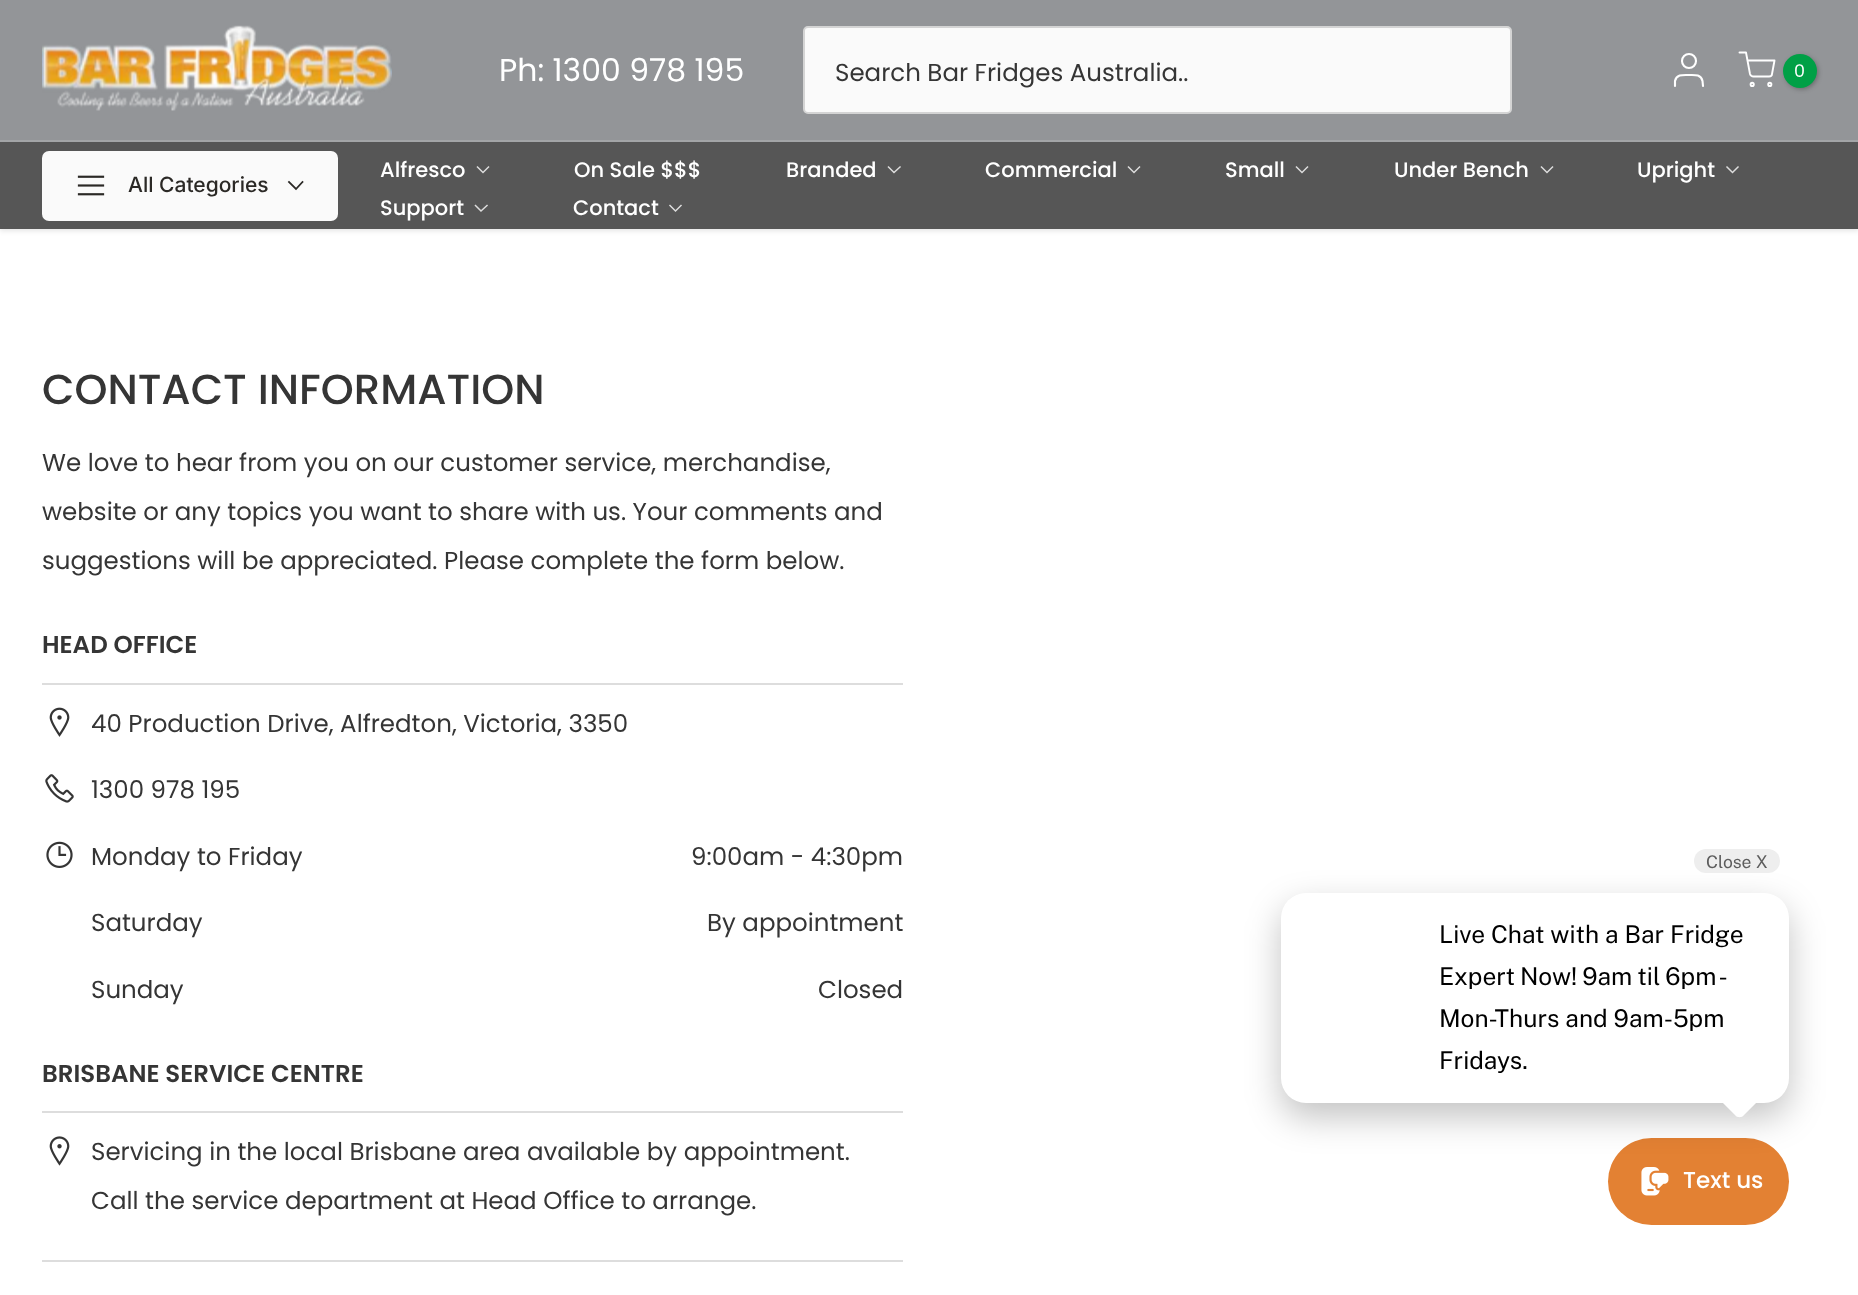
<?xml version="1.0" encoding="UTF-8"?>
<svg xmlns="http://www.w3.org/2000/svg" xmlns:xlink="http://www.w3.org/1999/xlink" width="1858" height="1295">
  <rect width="100%" height="100%" fill="#ffffff" />
  <rect y="2" width="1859" height="229" fill="#000000" fill-opacity="0.1" filter="blur(2.5px)" />
  <rect width="1858" height="140" fill="#939598" />
  <rect y="140" width="1858" height="2" fill="#a3a5a7" />
  <image x="42" y="25" width="350" height="86" xlink:href="image1.png" />
  <rect x="804" y="27" width="707" height="86" rx="4" fill="#fafafa" stroke="#d4d4d4" stroke-width="2" />
  <circle cx="1689" cy="61" r="7" fill="none" stroke="#ffffff" stroke-width="2.1" />
  <path d="M 1703 86 l -0.5 -5 c -1.5 -7 -8.5 -6 -13.5 -6 c -5.5 0 -12.5 -1 -14 6 v 5" fill="none" stroke="#ffffff" stroke-width="2.1" stroke-linecap="round" stroke-linejoin="round" />
  <path d="M 1739.5 52.5 h 6.5 l 4 21.5 c 0.5 1.5 1.5 2.5 3.5 2.5 h 15.5 c 1.5 0 3 -1 3 -2.5 l 2.5 -13.5 h -27" fill="none" stroke="#ffffff" stroke-width="1.9" stroke-linecap="round" stroke-linejoin="round" />
  <rect x="1785" y="56" width="33" height="33" rx="16.5" fill="#000000" fill-opacity="0.3" filter="blur(2.5px)" />
  <circle cx="1800" cy="71" r="17" fill="#00a046" />
  <circle cx="1752.2" cy="84.4" r="1.6" fill="none" stroke="#ffffff" stroke-width="1.9" />
  <circle cx="1769.8" cy="84.4" r="1.6" fill="none" stroke="#ffffff" stroke-width="1.9" />
  <rect y="142" width="1858" height="87" fill="#565656" />
  <rect x="42" y="151" width="296" height="70" rx="7" fill="#fafafa" />
  <image x="77" y="175" width="28" height="21" xlink:href="image2.png" />
  <path d="M 302.5 182 l -6.5 7 l -7 -7" fill="none" stroke="#2b2926" stroke-width="1.8" stroke-linecap="square" />
  <path d="M 488.5 167 l -5.5 5.5 l -5.5 -5.5" fill="none" stroke="#dddddd" stroke-width="1.5" stroke-linecap="square" />
  <path d="M 900 167 l -6 5.5 l -5.5 -5.5" fill="none" stroke="#dddddd" stroke-width="1.5" stroke-linecap="square" />
  <path d="M 1139.5 167 l -5.5 5.5 l -5.5 -5.5" fill="none" stroke="#dddddd" stroke-width="1.5" stroke-linecap="square" />
  <path d="M 1307.5 167 l -5.5 5.5 l -5.5 -5.5" fill="none" stroke="#dddddd" stroke-width="1.5" stroke-linecap="square" />
  <path d="M 1552.5 167 l -5.5 5.5 l -5.5 -5.5" fill="none" stroke="#dddddd" stroke-width="1.5" stroke-linecap="square" />
  <path d="M 1738 167 l -5.5 5.5 l -5.5 -5.5" fill="none" stroke="#dddddd" stroke-width="1.5" stroke-linecap="square" />
  <path d="M 487 205.5 l -6 5.5 l -5.5 -5.5" fill="none" stroke="#dddddd" stroke-width="1.5" stroke-linecap="square" />
  <path d="M 681 205.5 l -5.5 5.5 l -5.5 -5.5" fill="none" stroke="#dddddd" stroke-width="1.5" stroke-linecap="square" />
  <rect x="42" y="683" width="861" height="2" fill="#dddddd" />
  <image x="49" y="707" width="21" height="30" xlink:href="image3.png" />
  <image x="45" y="774" width="29" height="29" xlink:href="image4.png" />
  <image x="46" y="841" width="27" height="27" xlink:href="image5.png" />
  <rect x="42" y="1111" width="861" height="2" fill="#dddddd" />
  <image x="49" y="1136" width="21" height="30" xlink:href="image6.png" />
  <rect x="42" y="1260" width="861" height="2" fill="#dddddd" />
  <rect x="1608" y="1138" width="181" height="87" rx="43.5" fill="#e38133" />
  <image x="1641" y="1167" width="28" height="29" xlink:href="image7.png" />
  <rect x="1281" y="907" width="508" height="210" rx="25" fill="#000000" fill-opacity="0.24" filter="blur(17.5px)" />
  <rect x="1281" y="893" width="508" height="210" rx="25" fill="#ffffff" />
  <rect x="1694" y="849" width="86" height="24" rx="12" fill="#eeeeee" />
  <path d="M 1744 1076 l 15 15 c 3 2 3 7 0 9 l -15 15 c -2 3 -7 3 -9 0 l -15 -15 c -3 -2 -3 -7 0 -9 l 15 -15 c 2 -3 7 -3 9 0 z" fill="#ffffff" />
  <text x="499" y="81" style="font-family: Poppins; font-size: 31.5px; fill: #ffffff">Ph: 1300 978 195</text>
  <text x="835" y="81" style="font-family: Poppins; font-size: 24.5px; fill: #353535">Search Bar Fridges Australia..</text>
  <text x="1794" y="77" style="font-family: Poppins; font-size: 17.5px; fill: #ffffff">0</text>
  <text x="128" y="192" style="font-family: Inter; font-size: 21px; font-weight: 500; fill: #2b2926">All Categories</text>
  <text x="380" y="177" style="font-family: Poppins; font-size: 21px; font-weight: 500; fill: #ffffff">Alfresco</text>
  <text x="574" y="177" style="font-family: Poppins; font-size: 21px; font-weight: 500; fill: #ffffff">On Sale $$$</text>
  <text x="786" y="177" style="font-family: Poppins; font-size: 21px; font-weight: 500; fill: #ffffff">Branded</text>
  <text x="985" y="177" style="font-family: Poppins; font-size: 21px; font-weight: 500; fill: #ffffff">Commercial</text>
  <text x="1225" y="177" style="font-family: Poppins; font-size: 21px; font-weight: 500; fill: #ffffff">Small</text>
  <text x="1394" y="177" style="font-family: Poppins; font-size: 21px; font-weight: 500; fill: #ffffff">Under Bench</text>
  <text x="1637" y="177" style="font-family: Poppins; font-size: 21px; font-weight: 500; fill: #ffffff">Upright</text>
  <text x="380" y="215" style="font-family: Poppins; font-size: 21px; font-weight: 500; fill: #ffffff">Support</text>
  <text x="573" y="215" style="font-family: Poppins; font-size: 21px; font-weight: 500; fill: #ffffff">Contact</text>
  <text x="42" y="404" style="font-family: Poppins; font-size: 42px; font-weight: 500; fill: #353535">CONTACT INFORMATION</text>
  <text x="42" y="471" style="font-family: Poppins; font-size: 24.5px; fill: #353535">We love to hear from you on our customer service, merchandise,</text>
  <text x="42" y="520" style="font-family: Poppins; font-size: 24.5px; fill: #353535">website or any topics you want to share with us. Your comments and</text>
  <text x="42" y="569" style="font-family: Poppins; font-size: 24.5px; fill: #353535">suggestions will be appreciated. Please complete the form below.</text>
  <text x="42" y="653" style="font-family: Poppins; font-size: 24.5px; font-weight: 600; fill: #353535">HEAD OFFICE</text>
  <text x="91" y="732" style="font-family: Poppins; font-size: 24.5px; fill: #353535">40 Production Drive, Alfredton, Victoria, 3350</text>
  <text x="91" y="798" style="font-family: Poppins; font-size: 24.5px; fill: #353535">1300 978 195</text>
  <text x="91" y="865" style="font-family: Poppins; font-size: 24.5px; fill: #353535">Monday to Friday</text>
  <text x="691" y="865" style="font-family: Poppins; font-size: 24.5px; fill: #353535">9:00am - 4:30pm</text>
  <text x="91" y="931" style="font-family: Poppins; font-size: 24.5px; fill: #353535">Saturday</text>
  <text x="707" y="931" style="font-family: Poppins; font-size: 24.5px; fill: #353535">By appointment</text>
  <text x="91" y="998" style="font-family: Poppins; font-size: 24.5px; fill: #353535">Sunday</text>
  <text x="818" y="998" style="font-family: Poppins; font-size: 24.5px; fill: #353535">Closed</text>
  <text x="42" y="1082" style="font-family: Poppins; font-size: 24.5px; font-weight: 600; fill: #353535">BRISBANE SERVICE CENTRE</text>
  <text x="91" y="1160" style="font-family: Poppins; font-size: 24.5px; fill: #353535">Servicing in the local Brisbane area available by appointment.</text>
  <text x="91" y="1209" style="font-family: Poppins; font-size: 24.5px; fill: #353535">Call the service department at Head Office to arrange.</text>
  <text x="1706" y="868" style="font-family: Public Sans; font-size: 17.5px; font-weight: 100; fill: #5d5d5d">Close X</text>
  <text x="1439" y="943" style="font-family: Public Sans; font-size: 24.5px; font-weight: 100; fill: #000000">Live Chat with a Bar Fridge</text>
  <text x="1439" y="985" word-spacing="-1" style="font-family: Public Sans; font-size: 24.5px; font-weight: 100; fill: #000000">Expert Now! 9am til 6pm -</text>
  <text x="1439" y="1027" style="font-family: Public Sans; font-size: 24.5px; font-weight: 100; fill: #000000">Mon-Thurs and 9am-5pm</text>
  <text x="1439" y="1069" style="font-family: Public Sans; font-size: 24.5px; font-weight: 100; fill: #000000">Fridays.</text>
  <text x="1683" y="1188" style="font-family: Poppins; font-size: 23px; font-weight: 500; fill: #ffffff">Text us</text>
</svg>
